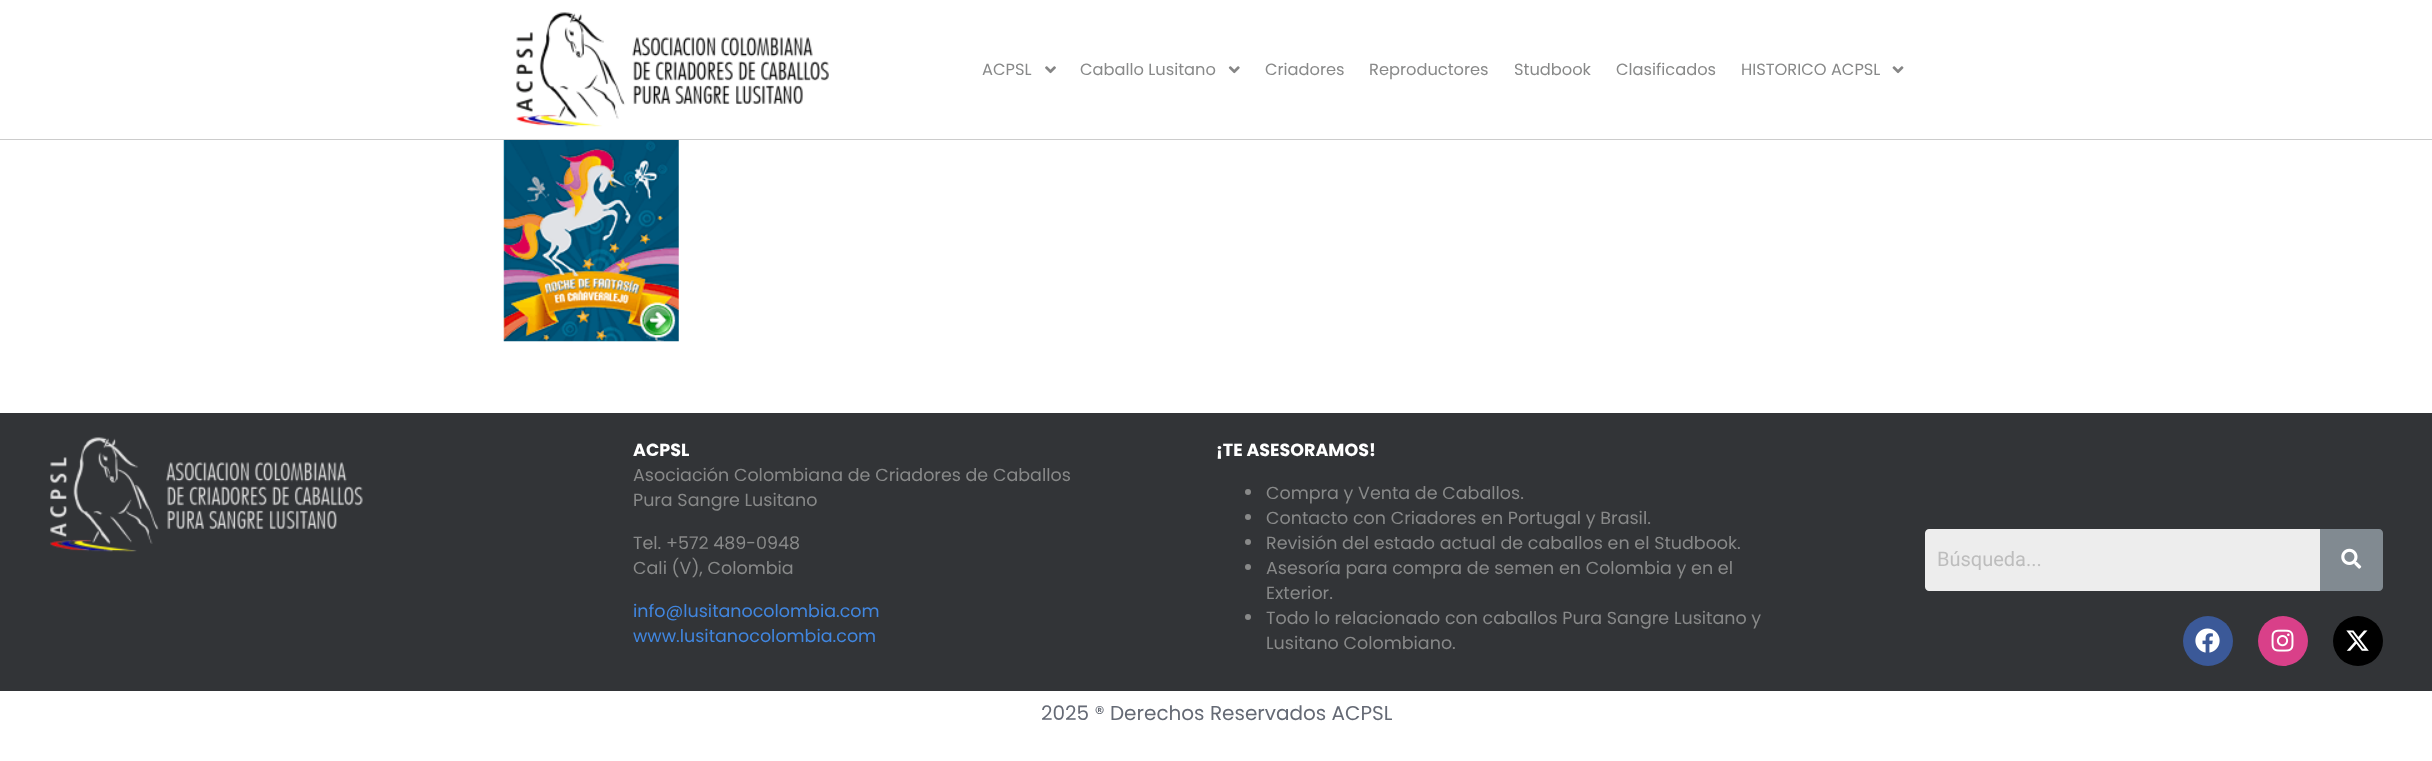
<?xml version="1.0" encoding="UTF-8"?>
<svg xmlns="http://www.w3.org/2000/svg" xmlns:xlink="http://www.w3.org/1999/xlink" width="2432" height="761">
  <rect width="100%" height="100%" fill="#ffffff" />
  <rect y="139" width="2432" height="1" fill="#cccccc" />
  <image x="516" y="12" width="313" height="115" xlink:href="image1.png" />
  <image x="1045" y="66" width="11" height="8" xlink:href="image2.png" />
  <image x="1228" y="66" width="12" height="8" xlink:href="image3.png" />
  <image x="1892" y="66" width="12" height="8" xlink:href="image4.png" />
  <image x="503" y="140" width="176" height="202" xlink:href="image5.png" />
  <rect y="413" width="2432" height="278" fill="#323437" />
  <image x="50" y="437" width="313" height="115" xlink:href="image6.png" />
  <circle cx="1248" cy="492" r="3" fill="#888989" />
  <circle cx="1248" cy="517" r="3" fill="#888989" />
  <circle cx="1248" cy="542" r="3" fill="#888989" />
  <circle cx="1248" cy="567" r="3" fill="#888989" />
  <circle cx="1248" cy="617" r="3" fill="#888989" />
  <path d="M 1929 529 h 391 v 62 h -391 c -2 0 -4 -2 -4 -4 v -54 c 0 -2 2 -4 4 -4 z" fill="#ededed" />
  <path d="M 2320 529 h 59 c 2 0 4 2 4 4 v 54 c 0 2 -2 4 -4 4 h -59 z" fill="#818a91" />
  <image x="2341" y="548" width="21" height="21" xlink:href="image7.png" />
  <circle cx="2208" cy="641" r="25" fill="#3b5998" />
  <image x="2195" y="628" width="25" height="25" xlink:href="image8.png" />
  <circle cx="2283" cy="641" r="25" fill="#d94089" />
  <image x="2271" y="629" width="23" height="23" xlink:href="image9.png" />
  <circle cx="2358" cy="641" r="25" fill="#000000" />
  <image x="2346" y="630" width="23" height="21" xlink:href="image10.png" />
  <text x="982" y="75" style="font-family: Poppins; font-size: 16.25px; fill: #888989">ACPSL</text>
  <text x="1080" y="75" style="font-family: Poppins; font-size: 16.25px; fill: #888989">Caballo Lusitano</text>
  <text x="1265" y="75" style="font-family: Poppins; font-size: 16.25px; fill: #888989">Criadores</text>
  <text x="1369" y="75" style="font-family: Poppins; font-size: 16.25px; fill: #888989">Reproductores</text>
  <text x="1514" y="75" style="font-family: Poppins; font-size: 16.25px; fill: #888989">Studbook</text>
  <text x="1616" y="75" style="font-family: Poppins; font-size: 16.25px; fill: #888989">Clasificados</text>
  <text x="1741" y="75" style="font-family: Poppins; font-size: 16.25px; fill: #888989">HISTORICO ACPSL</text>
  <text x="633" y="456" style="font-family: Poppins; font-size: 17.5px; font-weight: bold; fill: #ffffff">ACPSL</text>
  <text x="633" y="481" style="font-family: Poppins; font-size: 17.5px; fill: #888989">Asociación Colombiana de Criadores de Caballos</text>
  <text x="633" y="506" style="font-family: Poppins; font-size: 17.5px; fill: #888989">Pura Sangre Lusitano</text>
  <text x="633" y="549" style="font-family: Poppins; font-size: 17.5px; fill: #888989">Tel. +572 489-0948</text>
  <text x="633" y="574" style="font-family: Poppins; font-size: 17.5px; fill: #888989">Cali (V), Colombia</text>
  <text x="633" y="617" style="font-family: Poppins; font-size: 17.5px; fill: #4186df">info@lusitanocolombia.com</text>
  <text x="633" y="642" style="font-family: Poppins; font-size: 17.5px; fill: #4186df">www.lusitanocolombia.com</text>
  <text x="1216" y="456" style="font-family: Poppins; font-size: 17.5px; font-weight: bold; fill: #ffffff">¡TE ASESORAMOS!</text>
  <text x="1266" y="499" style="font-family: Poppins; font-size: 17.5px; fill: #888989">Compra y Venta de Caballos.</text>
  <text x="1266" y="524" style="font-family: Poppins; font-size: 17.5px; fill: #888989">Contacto con Criadores en Portugal y Brasil.</text>
  <text x="1266" y="549" style="font-family: Poppins; font-size: 17.5px; fill: #888989">Revisión del estado actual de caballos en el Studbook.</text>
  <text x="1266" y="574" style="font-family: Poppins; font-size: 17.5px; fill: #888989">Asesoría para compra de semen en Colombia y en el</text>
  <text x="1266" y="599" style="font-family: Poppins; font-size: 17.5px; fill: #888989">Exterior.</text>
  <text x="1266" y="624" style="font-family: Poppins; font-size: 17.5px; fill: #888989">Todo lo relacionado con caballos Pura Sangre Lusitano y</text>
  <text x="1266" y="649" style="font-family: Poppins; font-size: 17.5px; fill: #888989">Lusitano Colombiano.</text>
  <text x="1937" y="566" style="font-family: Roboto; font-size: 20px; fill: #bdbdbd">Búsqueda...</text>
  <text x="1041" y="720" style="font-family: Poppins; font-size: 20px; fill: #656a75">2025 ® Derechos Reservados ACPSL</text>
</svg>
